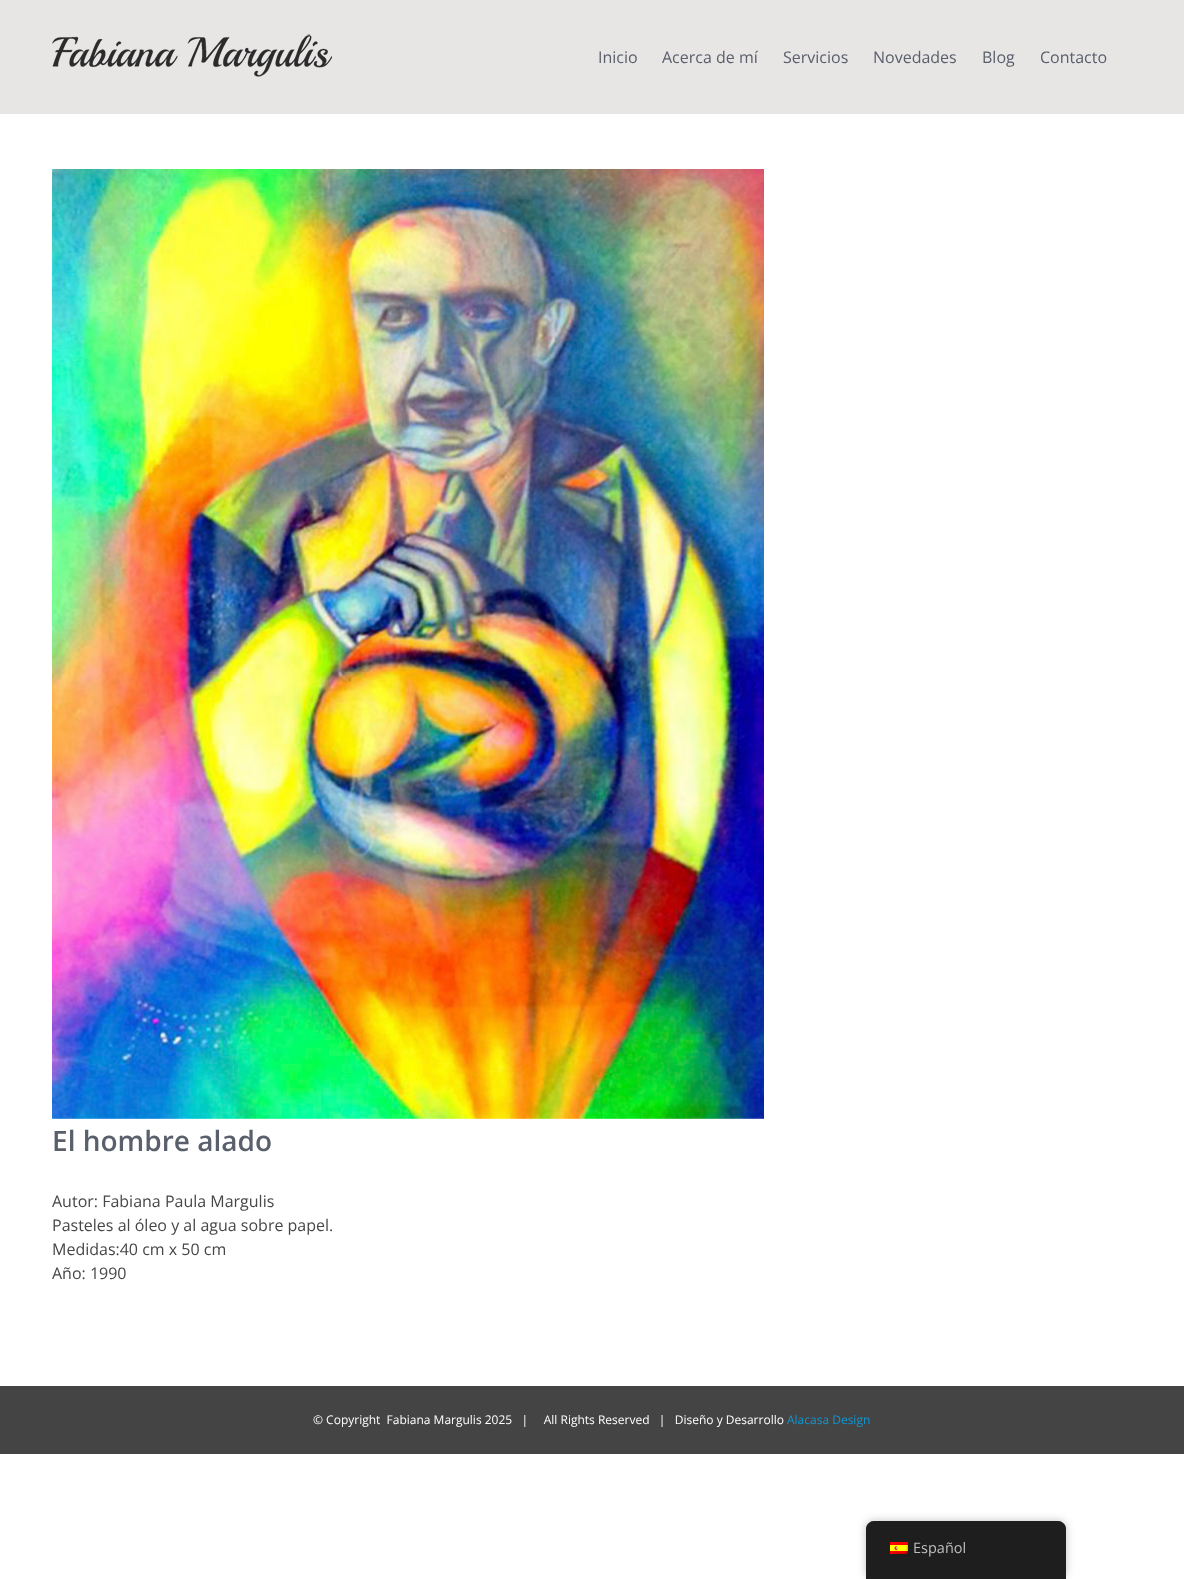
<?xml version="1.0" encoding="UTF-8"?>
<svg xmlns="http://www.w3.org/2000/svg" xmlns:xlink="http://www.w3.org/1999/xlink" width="1184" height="1579">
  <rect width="100%" height="100%" fill="#ffffff" />
  <rect width="1184" height="114" fill="#e8e5e5" />
  <image x="52" y="34" width="280" height="43" xlink:href="image1.png" />
  <image x="52" y="169" width="712" height="950" xlink:href="image2.png" />
  <rect y="1386" width="1184" height="68" fill="#444444" />
  <rect x="866" y="1521" width="200" height="58" rx="8" fill="#000000" fill-opacity="0.25" filter="blur(4px)" />
  <path d="M 874 1521 h 184 c 4.5 0 8 3.5 8 8 v 50 h -200 v -50 c 0 -4.5 3.5 -8 8 -8 z" fill="#1e1e1e" />
  <image x="890" y="1542" width="18" height="12" xlink:href="image3.png" />
  <text x="598" y="63" style="font-family: Open Sans; font-size: 16px; fill: #595f6b">Inicio</text>
  <text x="662" y="63" style="font-family: Open Sans; font-size: 16px; fill: #595f6b">Acerca de mí</text>
  <text x="783" y="63" style="font-family: Open Sans; font-size: 16px; fill: #595f6b">Servicios</text>
  <text x="873" y="63" style="font-family: Open Sans; font-size: 16px; fill: #595f6b">Novedades</text>
  <text x="982" y="63" style="font-family: Open Sans; font-size: 16px; fill: #595f6b">Blog</text>
  <text x="1040" y="63" style="font-family: Open Sans; font-size: 16px; fill: #595f6b">Contacto</text>
  <text x="52" y="1151" style="font-family: Open Sans; font-size: 28px; font-weight: 600; fill: #595f6b">El hombre alado</text>
  <text x="52" y="1207" style="font-family: Open Sans; font-size: 16px; fill: #474747">Autor: Fabiana Paula Margulis</text>
  <text x="52" y="1231" style="font-family: Open Sans; font-size: 16px; fill: #474747">Pasteles al óleo y al agua sobre papel.</text>
  <text x="52" y="1255" style="font-family: Open Sans; font-size: 16px; fill: #474747">Medidas:40 cm x 50 cm</text>
  <text x="52" y="1279" style="font-family: Open Sans; font-size: 16px; fill: #474747">Año: 1990</text>
  <text x="313" y="1424" style="font-family: Open Sans; font-size: 12px; fill: #ffffff" xml:space="preserve">© Copyright  Fabiana Margulis 2025   |     All Rights Reserved   |   Diseño y Desarrollo</text>
  <text x="787" y="1424" style="font-family: Open Sans; font-size: 12px; fill: #0e98d6">Alacasa Design</text>
  <text x="913" y="1553" style="font-family: Open Sans; font-size: 14.5px; fill: #bdbdbd">Español</text>
</svg>
